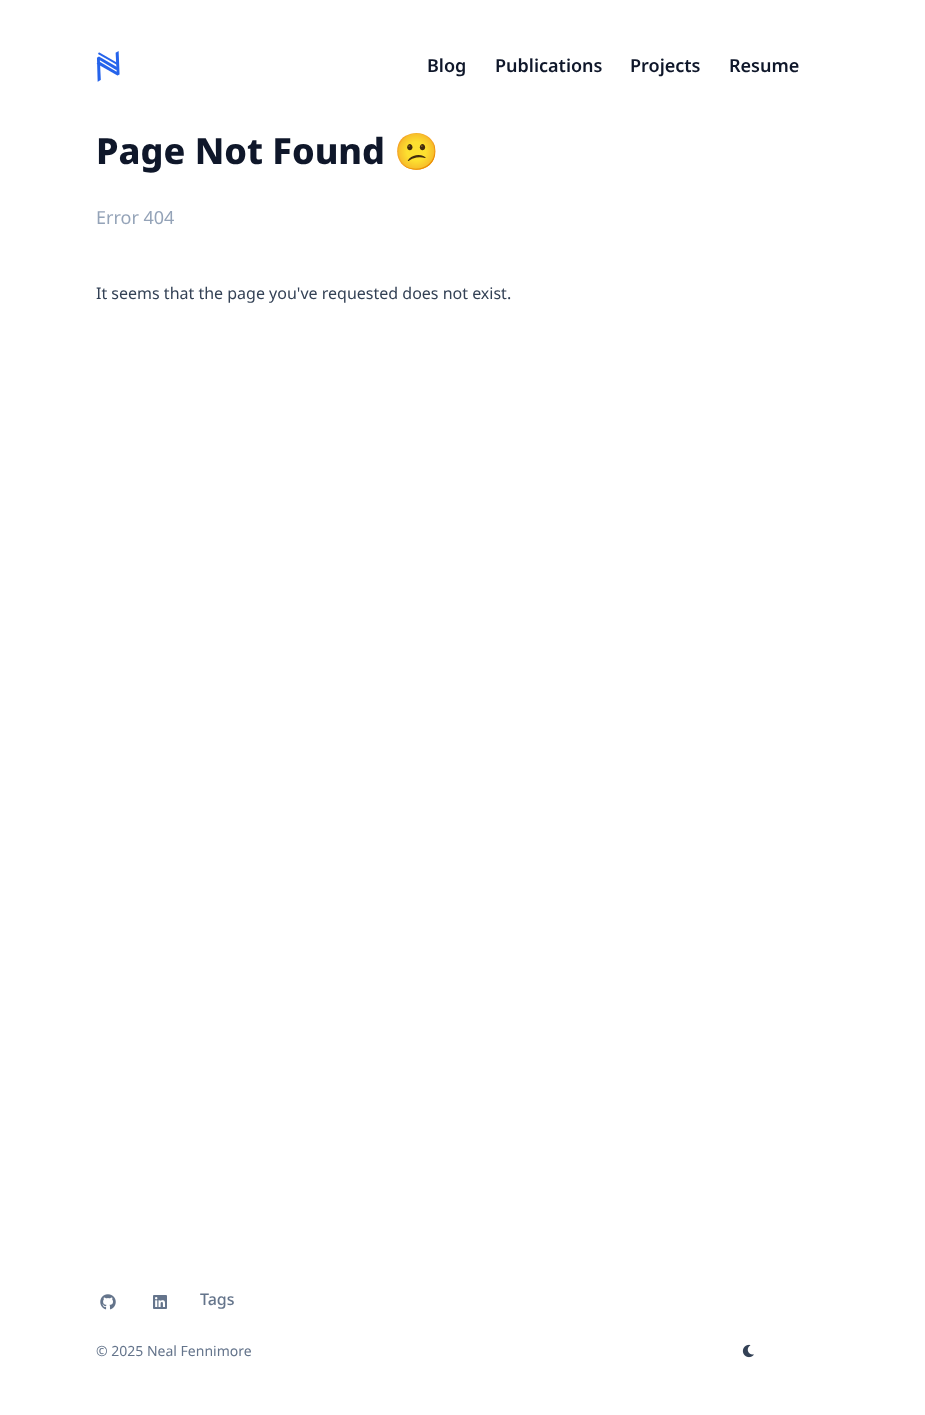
<?xml version="1.0" encoding="UTF-8"?>
<svg xmlns="http://www.w3.org/2000/svg" xmlns:xlink="http://www.w3.org/1999/xlink" width="925" height="1415">
  <rect width="100%" height="100%" fill="#ffffff" />
  <image x="96" y="51" width="24" height="31" xlink:href="image1.png" />
  <image x="100" y="1294" width="16" height="16" xlink:href="image2.png" />
  <image x="153" y="1295" width="14" height="14" xlink:href="image3.png" />
  <image x="742" y="1344" width="12" height="14" xlink:href="image4.png" />
  <text x="427" y="72" style="font-family: Noto Sans; font-size: 18px; font-weight: 600; fill: #0f172a">Blog</text>
  <text x="495" y="72" style="font-family: Noto Sans; font-size: 18px; font-weight: 600; fill: #0f172a">Publications</text>
  <text x="630" y="72" style="font-family: Noto Sans; font-size: 18px; font-weight: 600; fill: #0f172a">Projects</text>
  <text x="729" y="72" style="font-family: Noto Sans; font-size: 18px; font-weight: 600; fill: #0f172a">Resume</text>
  <text x="96" y="164" style="font-family: Noto Sans; font-size: 36px; font-weight: 800; fill: #0f172a">Page Not Found</text>
  <text x="394" y="164" style="font-family: Noto Color Emoji; font-size: 36px; font-weight: bold; fill: #0f172a">😕</text>
  <text x="96" y="224" style="font-family: Noto Sans; font-size: 18px; fill: #94a3b8">Error 404</text>
  <text x="96" y="299" style="font-family: Noto Sans; font-size: 16px; fill: #334155">It seems that the page you've requested does not exist.</text>
  <text x="200" y="1305" style="font-family: Noto Sans; font-size: 16px; font-weight: 500; fill: #64748b">Tags</text>
  <text x="96" y="1356" style="font-family: Noto Sans; font-size: 14px; fill: #64748b">© 2025 Neal Fennimore</text>
</svg>
